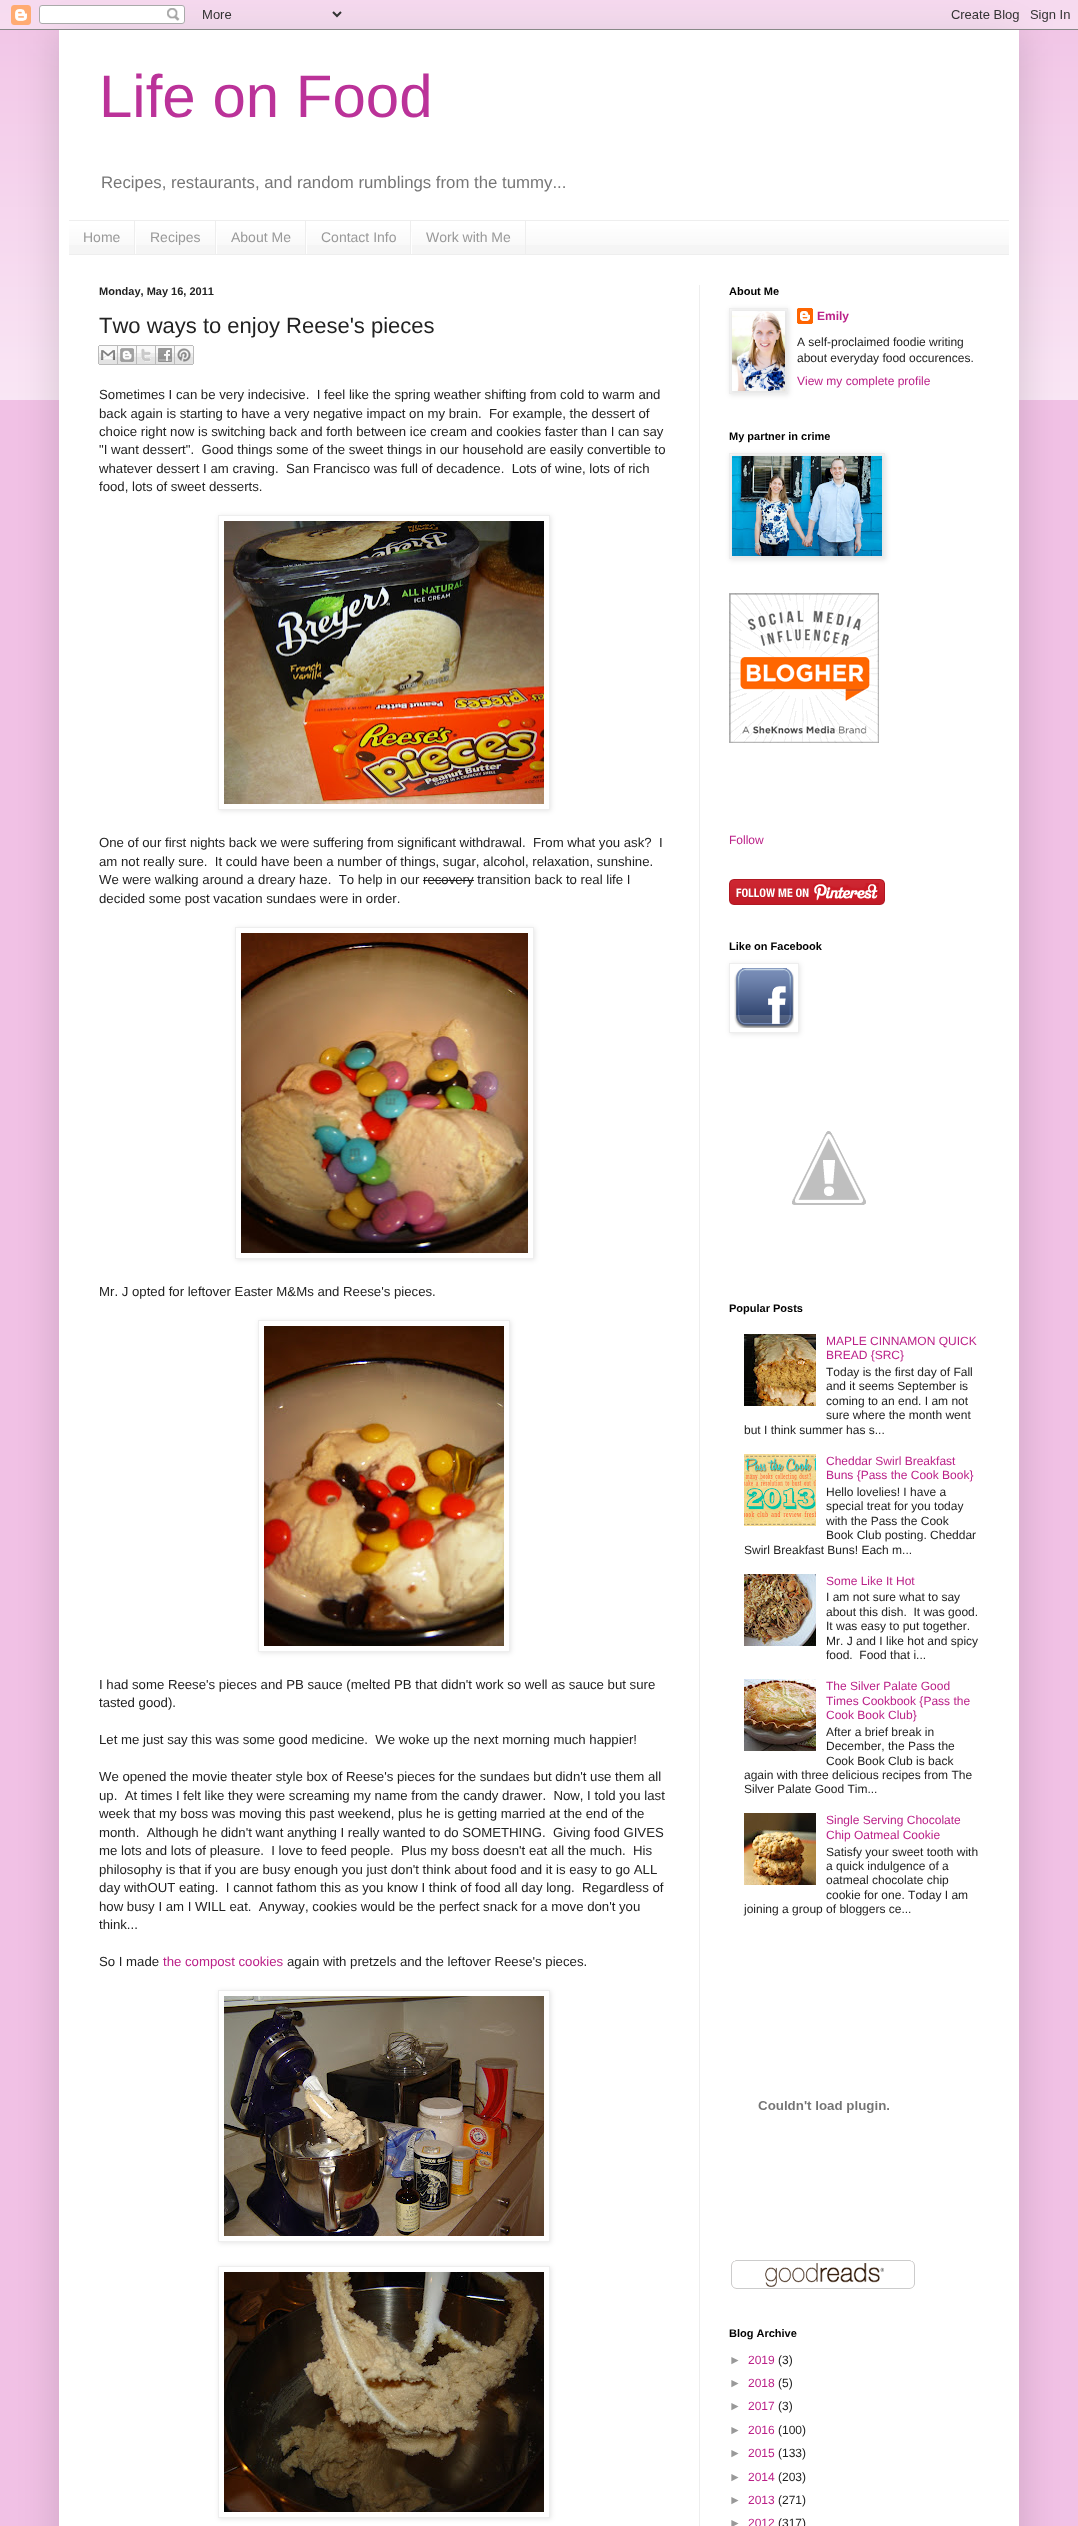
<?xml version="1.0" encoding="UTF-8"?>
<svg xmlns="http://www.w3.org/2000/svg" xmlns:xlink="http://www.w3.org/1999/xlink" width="1078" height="2526">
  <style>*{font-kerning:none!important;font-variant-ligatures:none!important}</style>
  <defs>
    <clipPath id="clip1"><path d="M 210 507 h 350 v 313 h -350 z m 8 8 h 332 v 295 h -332 z" clip-rule="evenodd" /></clipPath>
    <clipPath id="clip2"><path d="M 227 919 h 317 v 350 h -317 z m 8 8 h 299 v 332 h -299 z" clip-rule="evenodd" /></clipPath>
    <clipPath id="clip3"><path d="M 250 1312 h 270 v 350 h -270 z m 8 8 h 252 v 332 h -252 z" clip-rule="evenodd" /></clipPath>
    <clipPath id="clip4"><path d="M 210 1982 h 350 v 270 h -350 z m 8 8 h 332 v 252 h -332 z" clip-rule="evenodd" /></clipPath>
    <clipPath id="clip5"><path d="M 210 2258 h 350 v 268 h -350 z m 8 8 h 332 v 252 h -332 z" clip-rule="evenodd" /></clipPath>
    <clipPath id="clip6"><path d="M 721 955 h 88 v 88 h -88 z m 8 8 h 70 v 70 h -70 z" clip-rule="evenodd" /></clipPath>
  </defs>
  <rect width="100%" height="100%" fill="#f1c1e5" />
  <image x="0" y="10" width="1078" height="390" xlink:href="image2.png" />
  <rect x="59" y="30" width="960" height="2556" fill="#000000" fill-opacity="0.15" filter="blur(20px)" />
  <image x="0" y="0" width="1078" height="30" xlink:href="image1.png" />
  <rect x="59" y="30" width="960" height="2496" fill="#ffffff" />
  <rect x="69" y="222" width="940" height="32" fill="#f5f5f5" />
  <image x="69" y="221" width="940" height="24" xlink:href="image3.png" />
  <rect x="69" y="220" width="940" height="1" fill="#eeeeee" />
  <rect x="69" y="254" width="940" height="1" fill="#eeeeee" />
  <rect x="134" y="221" width="1" height="33" fill="#eeeeee" />
  <rect x="215" y="221" width="1" height="33" fill="#eeeeee" />
  <rect x="135" y="232" width="1" height="22" fill="#ffffff" />
  <rect x="305" y="221" width="1" height="33" fill="#eeeeee" />
  <rect x="216" y="232" width="1" height="22" fill="#ffffff" />
  <rect x="410" y="221" width="1" height="33" fill="#eeeeee" />
  <rect x="306" y="232" width="1" height="22" fill="#ffffff" />
  <rect x="525" y="221" width="1" height="33" fill="#eeeeee" />
  <rect x="411" y="232" width="1" height="22" fill="#ffffff" />
  <rect x="699" y="285" width="1" height="2241" fill="#eeeeee" />
  <image x="98" y="345" width="20" height="20" xlink:href="image4.png" />
  <image x="118" y="345" width="19" height="20" xlink:href="image5.png" />
  <image x="137" y="345" width="19" height="20" xlink:href="image6.png" />
  <image x="156" y="345" width="19" height="20" xlink:href="image7.png" />
  <image x="175" y="345" width="19" height="20" xlink:href="image8.png" />
  <g clip-path="url(#clip1)">
    <rect x="219" y="516" width="332" height="295" fill="#000000" fill-opacity="0.1" filter="blur(2.5px)" />
  </g>
  <rect x="218.5" y="515.5" width="331" height="294" fill="none" stroke="#eeeeee" />
  <image x="224" y="521" width="320" height="283" xlink:href="image9.png" />
  <rect x="423" y="880" width="51" height="1" fill="#222222" />
  <g clip-path="url(#clip2)">
    <rect x="236" y="928" width="299" height="332" fill="#000000" fill-opacity="0.1" filter="blur(2.5px)" />
  </g>
  <rect x="235.5" y="927.5" width="298" height="331" fill="none" stroke="#eeeeee" />
  <image x="241" y="933" width="287" height="320" xlink:href="image10.png" />
  <g clip-path="url(#clip3)">
    <rect x="259" y="1321" width="252" height="332" fill="#000000" fill-opacity="0.1" filter="blur(2.5px)" />
  </g>
  <rect x="258.5" y="1320.5" width="251" height="331" fill="none" stroke="#eeeeee" />
  <image x="264" y="1326" width="240" height="320" xlink:href="image11.png" />
  <g clip-path="url(#clip4)">
    <rect x="219" y="1991" width="332" height="252" fill="#000000" fill-opacity="0.1" filter="blur(2.5px)" />
  </g>
  <rect x="218.5" y="1990.5" width="331" height="251" fill="none" stroke="#eeeeee" />
  <image x="224" y="1996" width="320" height="240" xlink:href="image12.png" />
  <g clip-path="url(#clip5)">
    <rect x="219" y="2267" width="332" height="252" fill="#000000" fill-opacity="0.1" filter="blur(2.5px)" />
  </g>
  <rect x="218.5" y="2266.5" width="331" height="251" fill="none" stroke="#eeeeee" />
  <image x="224" y="2272" width="320" height="240" xlink:href="image13.png" />
  <image x="797" y="308" width="16" height="16" xlink:href="image15.png" />
  <rect x="730" y="309" width="59" height="86" fill="#000000" fill-opacity="0.1" filter="blur(2.5px)" />
  <rect x="729.5" y="308.5" width="58" height="85" fill="none" stroke="#eeeeee" />
  <image x="732" y="311" width="53" height="80" xlink:href="image14.png" />
  <rect x="730" y="454" width="156" height="106" fill="#000000" fill-opacity="0.1" filter="blur(2.5px)" />
  <rect x="729.5" y="453.5" width="155" height="105" fill="none" stroke="#eeeeee" />
  <image x="732" y="456" width="150" height="100" xlink:href="image16.png" />
  <image x="729" y="593" width="150" height="150" xlink:href="image17.png" />
  <image x="729" y="879" width="156" height="26" xlink:href="image18.png" />
  <g clip-path="url(#clip6)">
    <rect x="730" y="964" width="70" height="70" fill="#000000" fill-opacity="0.1" filter="blur(2.5px)" />
  </g>
  <rect x="729.5" y="963.5" width="69" height="69" fill="none" stroke="#eeeeee" />
  <image x="734" y="968" width="60" height="60" xlink:href="image19.png" />
  <image x="792" y="1131" width="74" height="74" xlink:href="image20.png" />
  <image x="744" y="1334" width="72" height="72" xlink:href="image21.png" />
  <image x="744" y="1454" width="72" height="72" xlink:href="image22.png" />
  <image x="744" y="1574" width="72" height="72" xlink:href="image23.png" />
  <image x="744" y="1679" width="72" height="72" xlink:href="image24.png" />
  <image x="744" y="1813" width="72" height="72" xlink:href="image25.png" />
  <image x="758" y="2101" width="131" height="12" xlink:href="image26.png" />
  <image x="731" y="2260" width="184" height="29" xlink:href="image27.png" />
  <text x="99" y="117" style="font-family: Liberation Sans; font-size: 60px; fill: #bb3299">Life on Food</text>
  <text x="101" y="188" style="font-family: Liberation Sans; font-size: 16.8px; fill: #777777">Recipes, restaurants, and random rumblings from the tummy...</text>
  <text x="83" y="242" style="font-family: Liberation Sans; font-size: 14px; fill: #999999">Home</text>
  <text x="150" y="242" style="font-family: Liberation Sans; font-size: 14px; fill: #999999">Recipes</text>
  <text x="231" y="242" style="font-family: Liberation Sans; font-size: 14px; fill: #999999">About Me</text>
  <text x="321" y="242" style="font-family: Liberation Sans; font-size: 14px; fill: #999999">Contact Info</text>
  <text x="426" y="242" style="font-family: Liberation Sans; font-size: 14px; fill: #999999">Work with Me</text>
  <text x="99" y="295" style="font-family: Liberation Sans; font-size: 11px; font-weight: bold; fill: #222222">Monday, May 16, 2011</text>
  <text x="99" y="333" style="font-family: Liberation Sans; font-size: 22px; fill: #222222">Two ways to enjoy Reese's pieces</text>
  <text x="99" y="399" style="font-family: Liberation Sans; font-size: 13.2px; fill: #222222" xml:space="preserve">Sometimes I can be very indecisive.  I feel like the spring weather shifting from cold to warm and</text>
  <text x="99" y="418" style="font-family: Liberation Sans; font-size: 13.2px; fill: #222222" xml:space="preserve">back again is starting to have a very negative impact on my brain.  For example, the dessert of</text>
  <text x="99" y="436" style="font-family: Liberation Sans; font-size: 13.2px; fill: #222222">choice right now is switching back and forth between ice cream and cookies faster than I can say</text>
  <text x="99" y="454" style="font-family: Liberation Sans; font-size: 13.2px; fill: #222222" xml:space="preserve">"I want dessert".  Good things some of the sweet things in our household are easily convertible to</text>
  <text x="99" y="473" style="font-family: Liberation Sans; font-size: 13.2px; fill: #222222" xml:space="preserve">whatever dessert I am craving.  San Francisco was full of decadence.  Lots of wine, lots of rich</text>
  <text x="99" y="491" style="font-family: Liberation Sans; font-size: 13.2px; fill: #222222">food, lots of sweet desserts. </text>
  <text x="99" y="847" style="font-family: Liberation Sans; font-size: 13.2px; fill: #222222" xml:space="preserve">One of our first nights back we were suffering from significant withdrawal.  From what you ask?  I</text>
  <text x="99" y="866" style="font-family: Liberation Sans; font-size: 13.2px; fill: #222222" xml:space="preserve">am not really sure.  It could have been a number of things, sugar, alcohol, relaxation, sunshine.</text>
  <text x="99" y="884" style="font-family: Liberation Sans; font-size: 13.2px; fill: #222222" xml:space="preserve">We were walking around a dreary haze.  To help in our recovery transition back to real life I</text>
  <text x="99" y="903" style="font-family: Liberation Sans; font-size: 13.2px; fill: #222222">decided some post vacation sundaes were in order.</text>
  <text x="99" y="1296" style="font-family: Liberation Sans; font-size: 13.2px; fill: #222222" xml:space="preserve">Mr. J opted for leftover Easter M&amp;Ms and Reese's pieces.  </text>
  <text x="99" y="1689" style="font-family: Liberation Sans; font-size: 13.2px; fill: #222222">I had some Reese's pieces and PB sauce (melted PB that didn't work so well as sauce but sure</text>
  <text x="99" y="1707" style="font-family: Liberation Sans; font-size: 13.2px; fill: #222222">tasted good).</text>
  <text x="99" y="1744" style="font-family: Liberation Sans; font-size: 13.2px; fill: #222222" xml:space="preserve">Let me just say this was some good medicine.  We woke up the next morning much happier!</text>
  <text x="99" y="1781" style="font-family: Liberation Sans; font-size: 13.2px; fill: #222222">We opened the movie theater style box of Reese's pieces for the sundaes but didn't use them all</text>
  <text x="99" y="1800" style="font-family: Liberation Sans; font-size: 13.2px; fill: #222222" xml:space="preserve">up.  At times I felt like they were screaming my name from the candy drawer.  Now, I told you last</text>
  <text x="99" y="1818" style="font-family: Liberation Sans; font-size: 13.2px; fill: #222222">week that my boss was moving this past weekend, plus he is getting married at the end of the</text>
  <text x="99" y="1837" style="font-family: Liberation Sans; font-size: 13.2px; fill: #222222" xml:space="preserve">month.  Although he didn't want anything I really wanted to do SOMETHING.  Giving food GIVES</text>
  <text x="99" y="1855" style="font-family: Liberation Sans; font-size: 13.2px; fill: #222222" xml:space="preserve">me lots and lots of pleasure.  I love to feed people.  Plus my boss doesn't eat all the much.  His</text>
  <text x="99" y="1874" style="font-family: Liberation Sans; font-size: 13.2px; fill: #222222">philosophy is that if you are busy enough you just don't think about food and it is easy to go ALL</text>
  <text x="99" y="1892" style="font-family: Liberation Sans; font-size: 13.2px; fill: #222222" xml:space="preserve">day withOUT eating.  I cannot fathom this as you know I think of food all day long.  Regardless of</text>
  <text x="99" y="1911" style="font-family: Liberation Sans; font-size: 13.2px; fill: #222222" xml:space="preserve">how busy I am I WILL eat.  Anyway, cookies would be the perfect snack for a move don't you</text>
  <text x="99" y="1929" style="font-family: Liberation Sans; font-size: 13.2px; fill: #222222">think...</text>
  <text x="99" y="1966" style="font-family: Liberation Sans; font-size: 13.2px; fill: #222222">So I made</text>
  <text x="163" y="1966" style="font-family: Liberation Sans; font-size: 13.2px; fill: #bb2188">the compost cookies</text>
  <text x="287" y="1966" style="font-family: Liberation Sans; font-size: 13.2px; fill: #222222" xml:space="preserve">again with pretzels and the leftover Reese's pieces.  </text>
  <text x="729" y="295" style="font-family: Liberation Sans; font-size: 11px; font-weight: bold; fill: #000000">About Me</text>
  <text x="817" y="320" style="font-family: Liberation Sans; font-size: 12px; font-weight: bold; fill: #bb2188">Emily</text>
  <text x="797" y="346" style="font-family: Liberation Sans; font-size: 12px; fill: #222222">A self-proclaimed foodie writing</text>
  <text x="797" y="362" style="font-family: Liberation Sans; font-size: 12px; fill: #222222">about everyday food occurences.</text>
  <text x="797" y="385" style="font-family: Liberation Sans; font-size: 12px; fill: #bb2188">View my complete profile</text>
  <text x="729" y="440" style="font-family: Liberation Sans; font-size: 11px; font-weight: bold; fill: #000000">My partner in crime</text>
  <text x="729" y="844" style="font-family: Liberation Sans; font-size: 12px; fill: #bb2188">Follow</text>
  <text x="729" y="950" style="font-family: Liberation Sans; font-size: 11px; font-weight: bold; fill: #000000">Like on Facebook</text>
  <text x="729" y="1312" style="font-family: Liberation Sans; font-size: 11px; font-weight: bold; fill: #000000">Popular Posts</text>
  <text x="826" y="1345" style="font-family: Liberation Sans; font-size: 12px; fill: #bb2188">MAPLE CINNAMON QUICK</text>
  <text x="826" y="1359" style="font-family: Liberation Sans; font-size: 12px; fill: #bb2188">BREAD {SRC}</text>
  <text x="826" y="1376" style="font-family: Liberation Sans; font-size: 12px; fill: #222222">Today is the first day of Fall</text>
  <text x="826" y="1390" style="font-family: Liberation Sans; font-size: 12px; fill: #222222">and it seems September is</text>
  <text x="826" y="1405" style="font-family: Liberation Sans; font-size: 12px; fill: #222222">coming to an end. I am not</text>
  <text x="826" y="1419" style="font-family: Liberation Sans; font-size: 12px; fill: #222222">sure where the month went</text>
  <text x="744" y="1434" style="font-family: Liberation Sans; font-size: 12px; fill: #222222">but I think summer has s...</text>
  <text x="826" y="1465" style="font-family: Liberation Sans; font-size: 12px; fill: #bb2188">Cheddar Swirl Breakfast</text>
  <text x="826" y="1479" style="font-family: Liberation Sans; font-size: 12px; fill: #bb2188">Buns {Pass the Cook Book}</text>
  <text x="826" y="1496" style="font-family: Liberation Sans; font-size: 12px; fill: #222222">Hello lovelies! I have a</text>
  <text x="826" y="1510" style="font-family: Liberation Sans; font-size: 12px; fill: #222222">special treat for you today</text>
  <text x="826" y="1525" style="font-family: Liberation Sans; font-size: 12px; fill: #222222">with the Pass the Cook</text>
  <text x="826" y="1539" style="font-family: Liberation Sans; font-size: 12px; fill: #222222">Book Club posting. Cheddar</text>
  <text x="744" y="1554" style="font-family: Liberation Sans; font-size: 12px; fill: #222222">Swirl Breakfast Buns! Each m...</text>
  <text x="826" y="1585" style="font-family: Liberation Sans; font-size: 12px; fill: #bb2188">Some Like It Hot</text>
  <text x="826" y="1601" style="font-family: Liberation Sans; font-size: 12px; fill: #222222">I am not sure what to say</text>
  <text x="826" y="1616" style="font-family: Liberation Sans; font-size: 12px; fill: #222222" xml:space="preserve">about this dish.  It was good.</text>
  <text x="826" y="1630" style="font-family: Liberation Sans; font-size: 12px; fill: #222222">It was easy to put together.</text>
  <text x="826" y="1645" style="font-family: Liberation Sans; font-size: 12px; fill: #222222">Mr. J and I like hot and spicy</text>
  <text x="826" y="1659" style="font-family: Liberation Sans; font-size: 12px; fill: #222222" xml:space="preserve">food.  Food that i...</text>
  <text x="826" y="1690" style="font-family: Liberation Sans; font-size: 12px; fill: #bb2188">The Silver Palate Good</text>
  <text x="826" y="1705" style="font-family: Liberation Sans; font-size: 12px; fill: #bb2188">Times Cookbook {Pass the</text>
  <text x="826" y="1719" style="font-family: Liberation Sans; font-size: 12px; fill: #bb2188">Cook Book Club}</text>
  <text x="826" y="1736" style="font-family: Liberation Sans; font-size: 12px; fill: #222222">After a brief break in</text>
  <text x="826" y="1750" style="font-family: Liberation Sans; font-size: 12px; fill: #222222">December, the Pass the</text>
  <text x="826" y="1765" style="font-family: Liberation Sans; font-size: 12px; fill: #222222">Cook Book Club is back</text>
  <text x="744" y="1779" style="font-family: Liberation Sans; font-size: 12px; fill: #222222">again with three delicious recipes from The</text>
  <text x="744" y="1793" style="font-family: Liberation Sans; font-size: 12px; fill: #222222">Silver Palate Good Tim...</text>
  <text x="826" y="1824" style="font-family: Liberation Sans; font-size: 12px; fill: #bb2188">Single Serving Chocolate</text>
  <text x="826" y="1839" style="font-family: Liberation Sans; font-size: 12px; fill: #bb2188">Chip Oatmeal Cookie</text>
  <text x="826" y="1856" style="font-family: Liberation Sans; font-size: 12px; fill: #222222">Satisfy your sweet tooth with</text>
  <text x="826" y="1870" style="font-family: Liberation Sans; font-size: 12px; fill: #222222">a quick indulgence of a</text>
  <text x="826" y="1884" style="font-family: Liberation Sans; font-size: 12px; fill: #222222">oatmeal chocolate chip</text>
  <text x="826" y="1899" style="font-family: Liberation Sans; font-size: 12px; fill: #222222">cookie for one. Today I am</text>
  <text x="744" y="1913" style="font-family: Liberation Sans; font-size: 12px; fill: #222222">joining a group of bloggers ce...</text>
  <text x="729" y="2337" style="font-family: Liberation Sans; font-size: 11px; font-weight: bold; fill: #000000">Blog Archive</text>
  <text x="729" y="2364" style="font-family: Liberation Sans; font-size: 12px; fill: #999999">►</text>
  <text x="748" y="2364" style="font-family: Liberation Sans; font-size: 12px; fill: #bb2188">2019</text>
  <text x="778" y="2364" style="font-family: Liberation Sans; font-size: 12px; fill: #222222">(3)</text>
  <text x="729" y="2387" style="font-family: Liberation Sans; font-size: 12px; fill: #999999">►</text>
  <text x="748" y="2387" style="font-family: Liberation Sans; font-size: 12px; fill: #bb2188">2018</text>
  <text x="778" y="2387" style="font-family: Liberation Sans; font-size: 12px; fill: #222222">(5)</text>
  <text x="729" y="2410" style="font-family: Liberation Sans; font-size: 12px; fill: #999999">►</text>
  <text x="748" y="2410" style="font-family: Liberation Sans; font-size: 12px; fill: #bb2188">2017</text>
  <text x="778" y="2410" style="font-family: Liberation Sans; font-size: 12px; fill: #222222">(3)</text>
  <text x="729" y="2434" style="font-family: Liberation Sans; font-size: 12px; fill: #999999">►</text>
  <text x="748" y="2434" style="font-family: Liberation Sans; font-size: 12px; fill: #bb2188">2016</text>
  <text x="778" y="2434" style="font-family: Liberation Sans; font-size: 12px; fill: #222222">(100)</text>
  <text x="729" y="2457" style="font-family: Liberation Sans; font-size: 12px; fill: #999999">►</text>
  <text x="748" y="2457" style="font-family: Liberation Sans; font-size: 12px; fill: #bb2188">2015</text>
  <text x="778" y="2457" style="font-family: Liberation Sans; font-size: 12px; fill: #222222">(133)</text>
  <text x="729" y="2481" style="font-family: Liberation Sans; font-size: 12px; fill: #999999">►</text>
  <text x="748" y="2481" style="font-family: Liberation Sans; font-size: 12px; fill: #bb2188">2014</text>
  <text x="778" y="2481" style="font-family: Liberation Sans; font-size: 12px; fill: #222222">(203)</text>
  <text x="729" y="2504" style="font-family: Liberation Sans; font-size: 12px; fill: #999999">►</text>
  <text x="748" y="2504" style="font-family: Liberation Sans; font-size: 12px; fill: #bb2188">2013</text>
  <text x="778" y="2504" style="font-family: Liberation Sans; font-size: 12px; fill: #222222">(271)</text>
  <text x="729" y="2527" style="font-family: Liberation Sans; font-size: 12px; fill: #999999">►</text>
  <text x="748" y="2527" style="font-family: Liberation Sans; font-size: 12px; fill: #bb2188">2012</text>
  <text x="778" y="2527" style="font-family: Liberation Sans; font-size: 12px; fill: #222222">(317)</text>
</svg>
